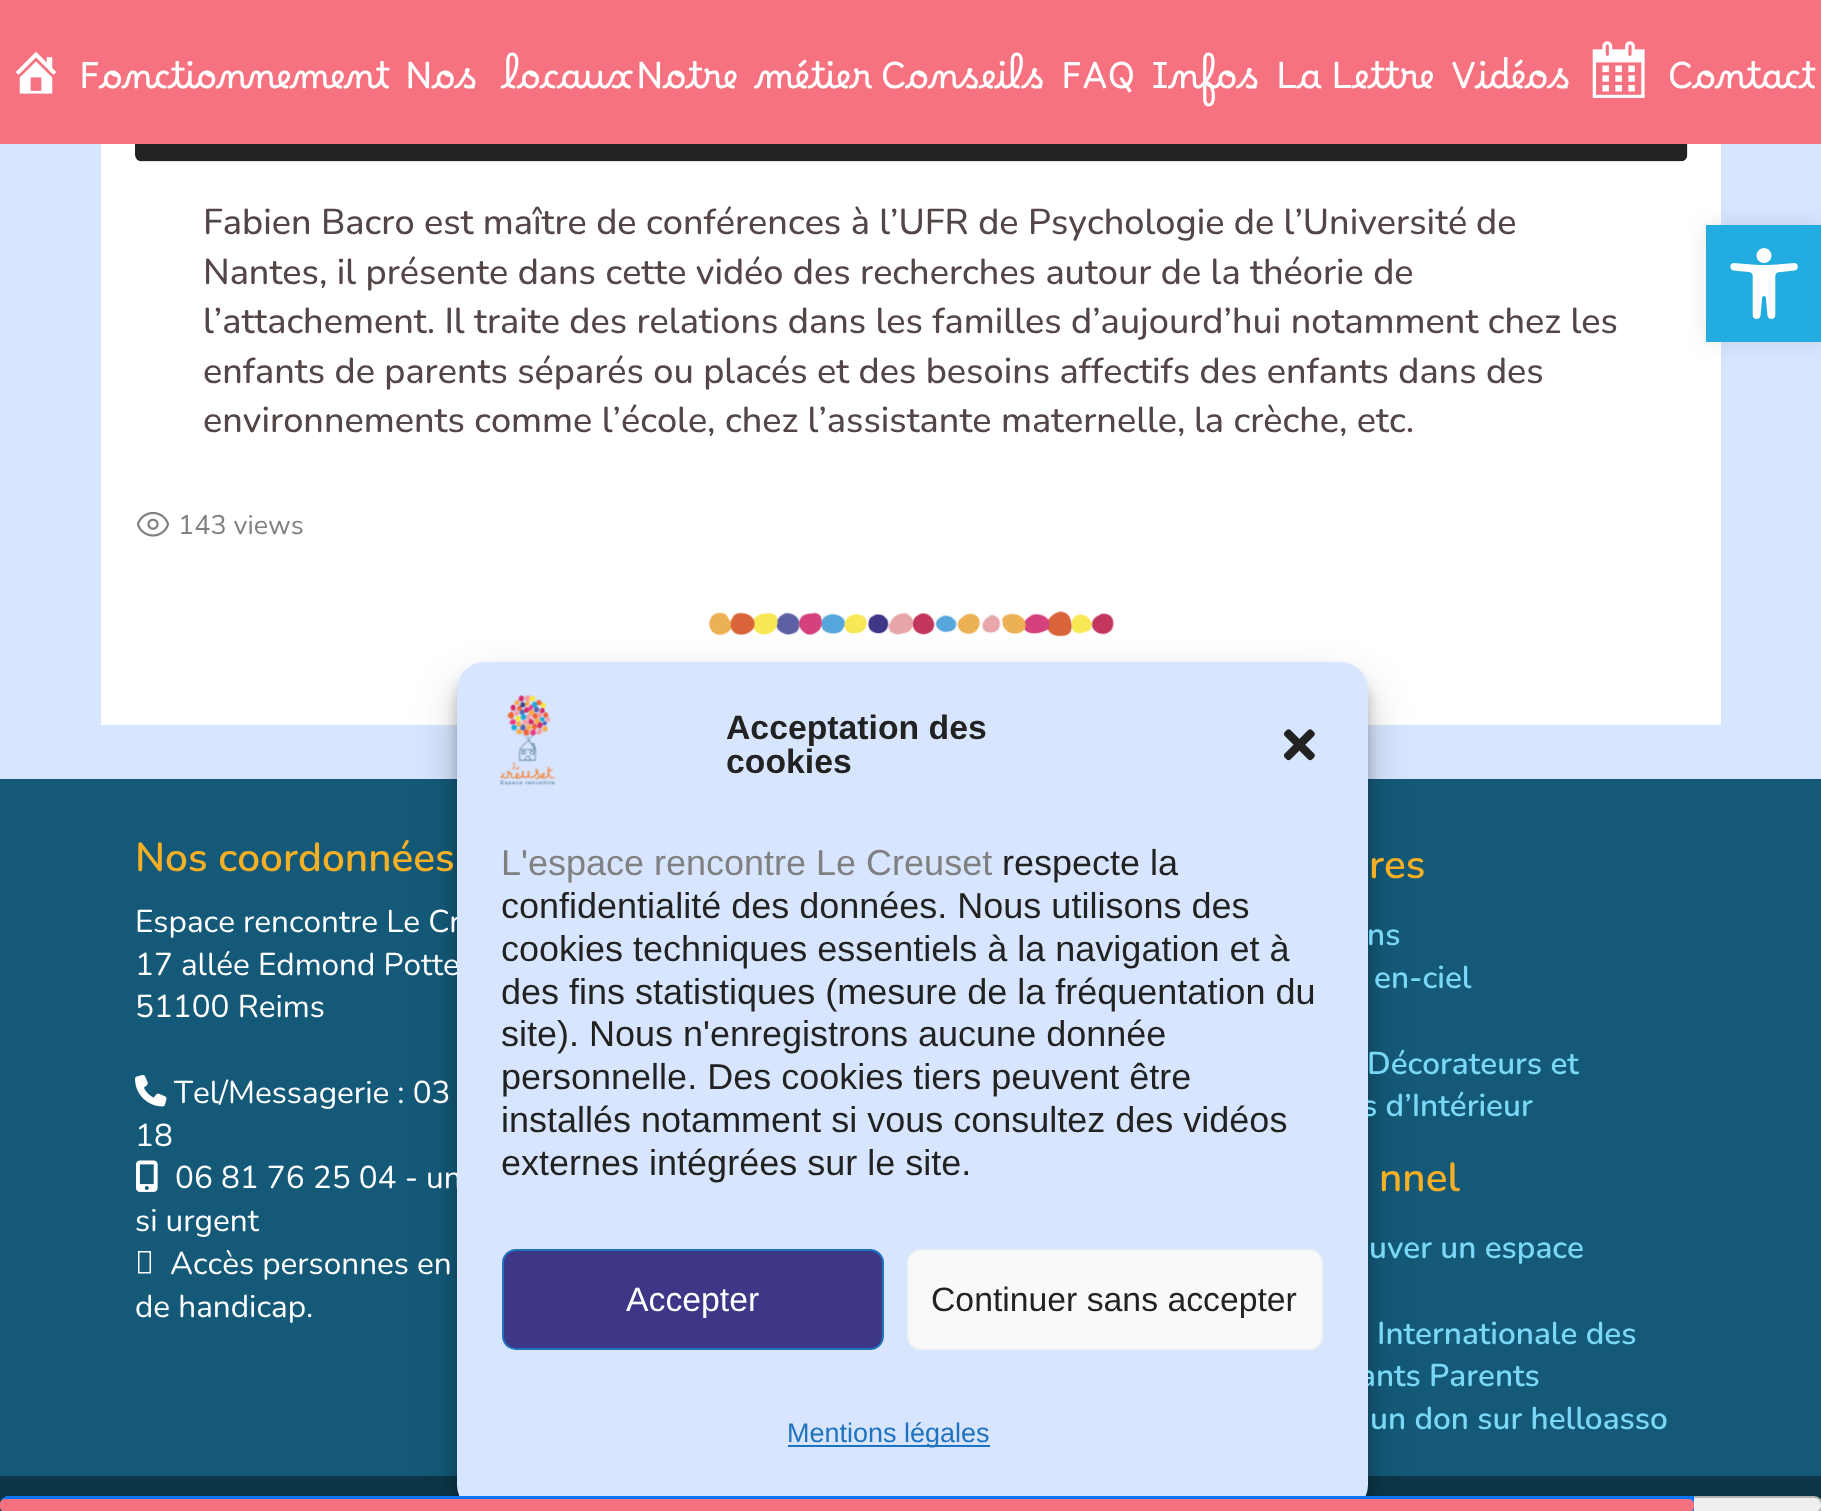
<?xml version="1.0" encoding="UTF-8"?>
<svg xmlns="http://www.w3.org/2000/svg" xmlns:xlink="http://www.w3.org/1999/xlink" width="1821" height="1511">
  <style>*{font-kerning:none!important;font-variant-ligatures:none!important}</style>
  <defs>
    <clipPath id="clip1"><path d="M 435 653 h 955 v 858 h -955 z m 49 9 h 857 c 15 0 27 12 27 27 v 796 c 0 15 -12 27 -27 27 h -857 c -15 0 -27 -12 -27 -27 v -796 c 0 -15 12 -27 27 -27 z" clip-rule="evenodd" /></clipPath>
    <clipPath id="clip2"><path d="M 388 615 h 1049 v 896 h -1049 z m 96 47 h 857 c 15 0 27 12 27 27 v 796 c 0 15 -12 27 -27 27 h -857 c -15 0 -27 -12 -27 -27 v -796 c 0 -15 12 -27 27 -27 z" clip-rule="evenodd" /></clipPath>
    <clipPath id="clip3"><rect x="1276" y="27" width="157" height="106" /></clipPath>
  </defs>
  <rect width="100%" height="100%" fill="#d7e5fe" />
  <rect width="1821" height="144" fill="#f67280" />
  <image x="15" y="51" width="42" height="43" xlink:href="image1.png" />
  <image x="1592" y="41" width="53" height="57" xlink:href="image2.png" />
  <rect x="101" y="144" width="1620" height="581" fill="#ffffff" />
  <image x="135" y="144" width="1553" height="18" xlink:href="image3.png" />
  <image x="136" y="511" width="34" height="26" xlink:href="image4.png" />
  <image x="708" y="611" width="406" height="26" xlink:href="image5.png" />
  <rect x="1706" y="225" width="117" height="117" fill="#000000" fill-opacity="0.1" filter="blur(11px)" />
  <rect x="1706" y="225" width="115" height="117" fill="#22ace0" />
  <image x="1730" y="248" width="68" height="71" xlink:href="image6.png" />
  <rect y="779" width="1821" height="697" fill="#145a78" />
  <rect y="1476" width="1821" height="35" fill="#0c3749" />
  <g clip-path="url(#clip1)">
    <rect x="457" y="675" width="911" height="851" rx="27" fill="#000000" fill-opacity="0.23" filter="blur(7px)" />
  </g>
  <g clip-path="url(#clip2)">
    <rect x="457" y="684" width="911" height="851" rx="27" fill="#000000" fill-opacity="0.19" filter="blur(22.5px)" />
  </g>
  <image x="135" y="1075" width="32" height="32" xlink:href="image9.png" />
  <image x="136" y="1160" width="22" height="32" xlink:href="image10.png" />
  <path d="M 138 1273.5 v -22.5 h 13 v 22.5 z m 1.5 -1.5 h 10 v -19.5 h -10 z" fill="#ffffff" />
  <text x="79" y="88" style="font-family: Borel; font-size: 36px; fill: #ffffff">Fonctionnement</text>
  <text x="405" y="88" word-spacing="14" style="font-family: Borel; font-size: 36px; fill: #ffffff">Nos locaux</text>
  <text x="636" y="88" word-spacing="7" style="font-family: Borel; font-size: 36px; fill: #ffffff">Notre métier</text>
  <text x="881" y="88" style="font-family: Borel; font-size: 36px; fill: #ffffff">Conseils</text>
  <text x="1061" y="88" style="font-family: Borel; font-size: 36px; fill: #ffffff">FAQ</text>
  <text x="1151" y="88" style="font-family: Borel; font-size: 36px; fill: #ffffff">Infos</text>
  <g clip-path="url(#clip3)">
    <text x="1276" y="88" style="font-family: Borel; font-size: 36px; fill: #ffffff">La Lettre</text>
  </g>
  <text x="1451" y="88" style="font-family: Borel; font-size: 36px; fill: #ffffff">Vidéos</text>
  <text x="1668" y="88" style="font-family: Borel; font-size: 36px; fill: #ffffff">Contact</text>
  <text x="203" y="234" style="font-family: Nunito; font-size: 36px; font-weight: 500; fill: #544647">Fabien Bacro est maître de conférences à l’UFR de Psychologie de l’Université</text>
  <text x="1476" y="234" style="font-family: Nunito; font-size: 36px; font-weight: 500; fill: #544647">de</text>
  <text x="203" y="284" style="font-family: Nunito; font-size: 36px; font-weight: 500; fill: #544647">Nantes, il présente dans cette vidéo des recherches autour de la théorie de</text>
  <text x="203" y="333" style="font-family: Nunito; font-size: 36px; font-weight: 500; fill: #544647">l’attachement. Il traite des relations dans les familles d’aujourd’hui notamment chez les</text>
  <text x="203" y="383" style="font-family: Nunito; font-size: 36px; font-weight: 500; fill: #544647">enfants de parents séparés ou placés et des besoins affectifs des enfants dans des</text>
  <text x="203" y="432" style="font-family: Nunito; font-size: 36px; font-weight: 500; fill: #544647">environnements comme l’école, chez l’assistante maternelle,</text>
  <text x="1194" y="432" style="font-family: Nunito; font-size: 36px; font-weight: 500; fill: #544647">la crèche, etc.</text>
  <text x="178" y="534" style="font-family: Nunito; font-size: 27px; font-weight: 200; fill: #808080">143 views</text>
  <text x="135" y="871" style="font-family: Nunito; font-size: 40.5px; font-weight: 600; fill: #f7b025">Nos coordonnées</text>
  <text x="135" y="932" style="font-family: Nunito; font-size: 31.5px; font-weight: 200; fill: #ffffff">Espace rencontre Le Cr</text>
  <text x="135" y="975" style="font-family: Nunito; font-size: 31.5px; font-weight: 200; fill: #ffffff">17 allée Edmond Potte</text>
  <text x="135" y="1017" style="font-family: Nunito; font-size: 31.5px; font-weight: 200; fill: #ffffff">51100 Reims</text>
  <text x="174" y="1103" style="font-family: Nunito; font-size: 31.5px; font-weight: 200; fill: #ffffff">Tel/Messagerie : 03</text>
  <text x="135" y="1146" style="font-family: Nunito; font-size: 31.5px; font-weight: 200; fill: #ffffff">18</text>
  <text x="175" y="1188" style="font-family: Nunito; font-size: 31.5px; font-weight: 200; fill: #ffffff">06 81 76 25 04 - un</text>
  <text x="135" y="1231" style="font-family: Nunito; font-size: 31.5px; font-weight: 200; fill: #ffffff">si urgent</text>
  <text x="170" y="1274" style="font-family: Nunito; font-size: 31.5px; font-weight: 200; fill: #ffffff">Accès personnes en</text>
  <text x="135" y="1317" style="font-family: Nunito; font-size: 31.5px; font-weight: 200; fill: #ffffff">de handicap.</text>
  <text x="1369" y="878" style="font-family: Nunito; font-size: 40.5px; font-weight: 600; fill: #f7b025">res</text>
  <text x="1367" y="945" style="font-family: Nunito; font-size: 31.5px; font-weight: 600; fill: #7bd7f6">ns</text>
  <text x="1374" y="988" style="font-family: Nunito; font-size: 31.5px; font-weight: 600; fill: #7bd7f6">en-ciel</text>
  <text x="1367" y="1074" style="font-family: Nunito; font-size: 31.5px; font-weight: 600; fill: #7bd7f6">Décorateurs et</text>
  <text x="1362" y="1116" style="font-family: Nunito; font-size: 31.5px; font-weight: 600; fill: #7bd7f6">s d’Intérieur</text>
  <text x="1379" y="1191" style="font-family: Nunito; font-size: 40.5px; font-weight: 600; fill: #f7b025">nnel</text>
  <text x="1369" y="1258" style="font-family: Nunito; font-size: 31.5px; font-weight: 600; fill: #7bd7f6">uver un espace</text>
  <text x="1377" y="1344" style="font-family: Nunito; font-size: 31.5px; font-weight: 600; fill: #7bd7f6">Internationale des</text>
  <text x="1359" y="1386" style="font-family: Nunito; font-size: 31.5px; font-weight: 600; fill: #7bd7f6">ants Parents</text>
  <rect x="457" y="662" width="911" height="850" rx="27" fill="#d7e5fe" />
  <rect x="788" y="1445" width="202" height="2" fill="#1e73be" />
  <text x="787" y="1442" style="font-family: Liberation Sans; font-size: 27px; fill: #1e73be">Mentions légales</text>
  <text x="501" y="1175" style="font-family: Liberation Sans; font-size: 36px; fill: #222222">externes intégrées sur le site.</text>
  <text x="501" y="1132" style="font-family: Liberation Sans; font-size: 36px; fill: #222222">installés notamment si vous consultez des vidéos</text>
  <text x="501" y="1089" style="font-family: Liberation Sans; font-size: 36px; fill: #222222">personnelle. Des cookies tiers peuvent être</text>
  <text x="501" y="1046" style="font-family: Liberation Sans; font-size: 36px; fill: #222222">site). Nous n'enregistrons aucune donnée</text>
  <text x="501" y="1004" style="font-family: Liberation Sans; font-size: 36px; fill: #222222">des fins statistiques (mesure de la fréquentation du</text>
  <text x="501" y="961" style="font-family: Liberation Sans; font-size: 36px; fill: #222222">cookies techniques essentiels à la navigation et à</text>
  <text x="501" y="918" style="font-family: Liberation Sans; font-size: 36px; fill: #222222">confidentialité des données. Nous utilisons des</text>
  <text x="1002" y="875" style="font-family: Liberation Sans; font-size: 36px; fill: #222222">respecte la</text>
  <text x="501" y="875" style="font-family: Liberation Sans; font-size: 36px; fill: #808080">L'espace rencontre Le Creuset</text>
  <image x="1283" y="729" width="32" height="32" xlink:href="image8.png" />
  <rect x="908" y="1250" width="414" height="99" rx="13" fill="#f9f9f9" stroke="#f2f2f2" stroke-width="2" />
  <text x="931" y="1311" style="font-family: Liberation Sans; font-size: 33.75px; fill: #222222">Continuer sans accepter</text>
  <rect x="503" y="1250" width="380" height="99" rx="13" fill="#3e3686" stroke="#1e73be" stroke-width="2" />
  <text x="626" y="1311" style="font-family: Liberation Sans; font-size: 33.75px; fill: #ffffff">Accepter</text>
  <text x="726" y="773" style="font-family: Liberation Sans; font-size: 33.75px; font-weight: bold; fill: #222222">cookies</text>
  <text x="726" y="739" style="font-family: Liberation Sans; font-size: 33.75px; font-weight: bold; fill: #222222">Acceptation des</text>
  <image x="500" y="695" width="56" height="91" xlink:href="image7.png" />
  <text x="1370" y="1429" style="font-family: Nunito; font-size: 31.5px; font-weight: 600; fill: #7bd7f6">un don sur helloasso</text>
  <rect x="1" y="1497" width="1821" height="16" rx="8" fill="#efefef" stroke="#b2b2b2" stroke-width="2" />
  <path d="M 9 1496 h 1685 v 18 h -1685 c -5 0 -9 -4 -9 -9 c 0 -5 4 -9 9 -9 z" fill="#0075ff" />
  <rect y="1499" width="1694" height="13" rx="5" fill="#f4717f" />
</svg>
